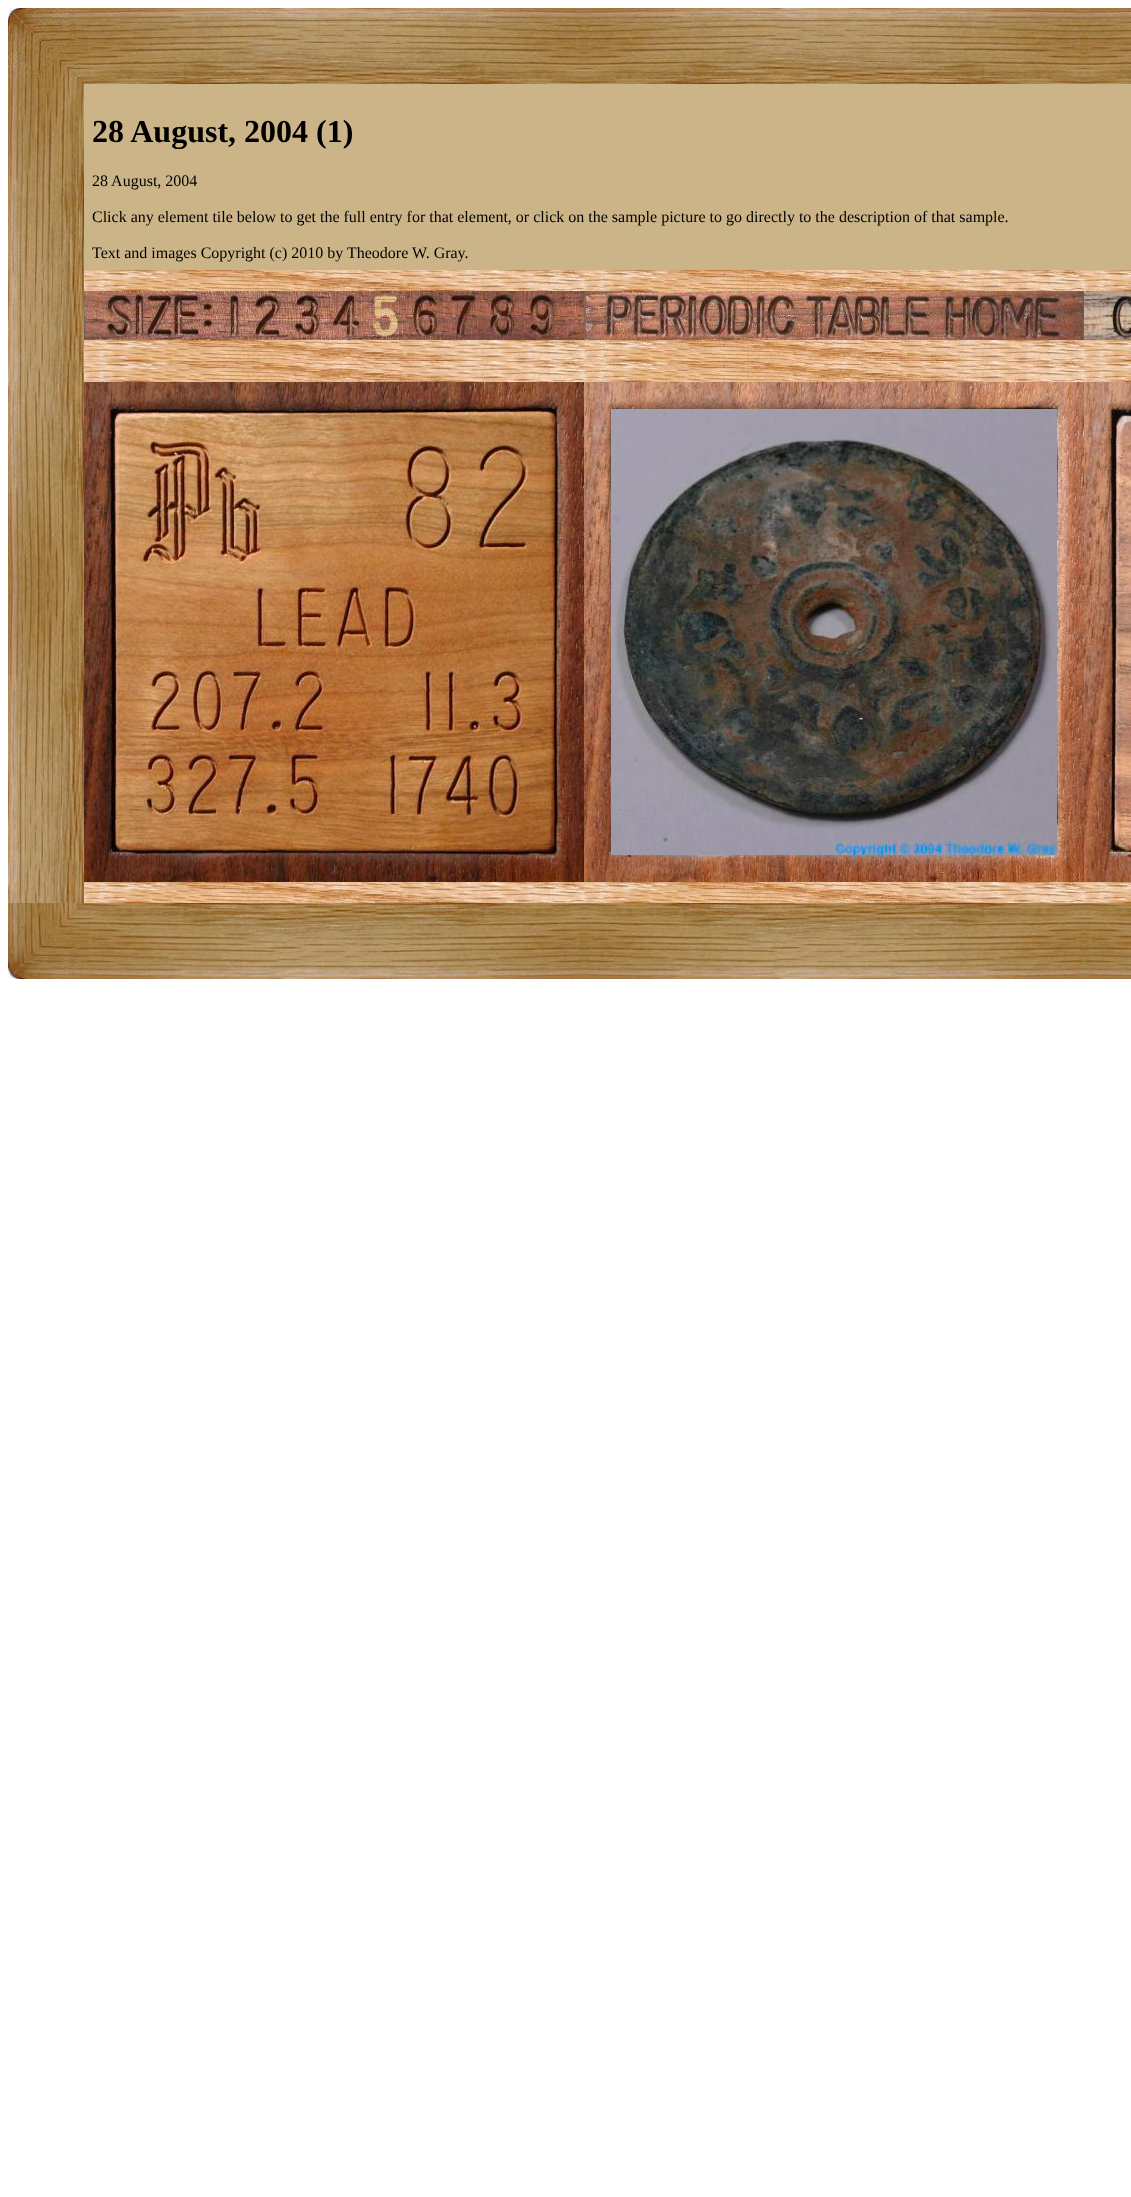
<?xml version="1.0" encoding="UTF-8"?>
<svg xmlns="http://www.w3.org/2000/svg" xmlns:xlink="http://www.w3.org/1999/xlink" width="1131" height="2197">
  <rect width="100%" height="100%" fill="#ffffff" />
  <image x="8" y="8" width="76" height="76" xlink:href="image1.png" />
  <image x="84" y="8" width="1047" height="76" xlink:href="image2.png" />
  <image x="8" y="84" width="76" height="819" xlink:href="image3.png" />
  <rect x="84" y="84" width="1047" height="186" fill="#cbb488" />
  <image x="84" y="270" width="1047" height="21" xlink:href="image4.png" />
  <image x="84" y="291" width="500" height="49" xlink:href="image5.png" />
  <image x="584" y="291" width="500" height="49" xlink:href="image6.png" />
  <image x="1084" y="291" width="47" height="49" xlink:href="image7.png" />
  <image x="84" y="340" width="1047" height="21" xlink:href="image4.png" />
  <image x="84" y="361" width="1047" height="21" xlink:href="image4.png" />
  <image x="84" y="382" width="500" height="500" xlink:href="image8.png" />
  <image x="584" y="382" width="500" height="500" xlink:href="image9.png" />
  <image x="611" y="409" width="446" height="446" xlink:href="image10.png" />
  <image x="1084" y="382" width="47" height="500" xlink:href="image11.png" />
  <image x="84" y="882" width="1047" height="21" xlink:href="image4.png" />
  <image x="8" y="903" width="76" height="76" xlink:href="image12.png" />
  <image x="84" y="903" width="1047" height="76" xlink:href="image13.png" />
  <text x="92" y="142" style="font-family: Liberation Serif; font-size: 32px; font-weight: bold; fill: #000000">28 August, 2004 (1)</text>
  <text x="92" y="186" style="font-family: Liberation Serif; font-size: 16px; fill: #000000">28 August, 2004</text>
  <text x="92" y="222" style="font-family: Liberation Serif; font-size: 16px; fill: #000000">Click any element tile below to get the full entry for that element, or click on the sample picture to go directly to the description of that sample.</text>
  <text x="92" y="258" style="font-family: Liberation Serif; font-size: 16px; fill: #000000">Text and images Copyright (c) 2010 by Theodore W. Gray.</text>
</svg>
